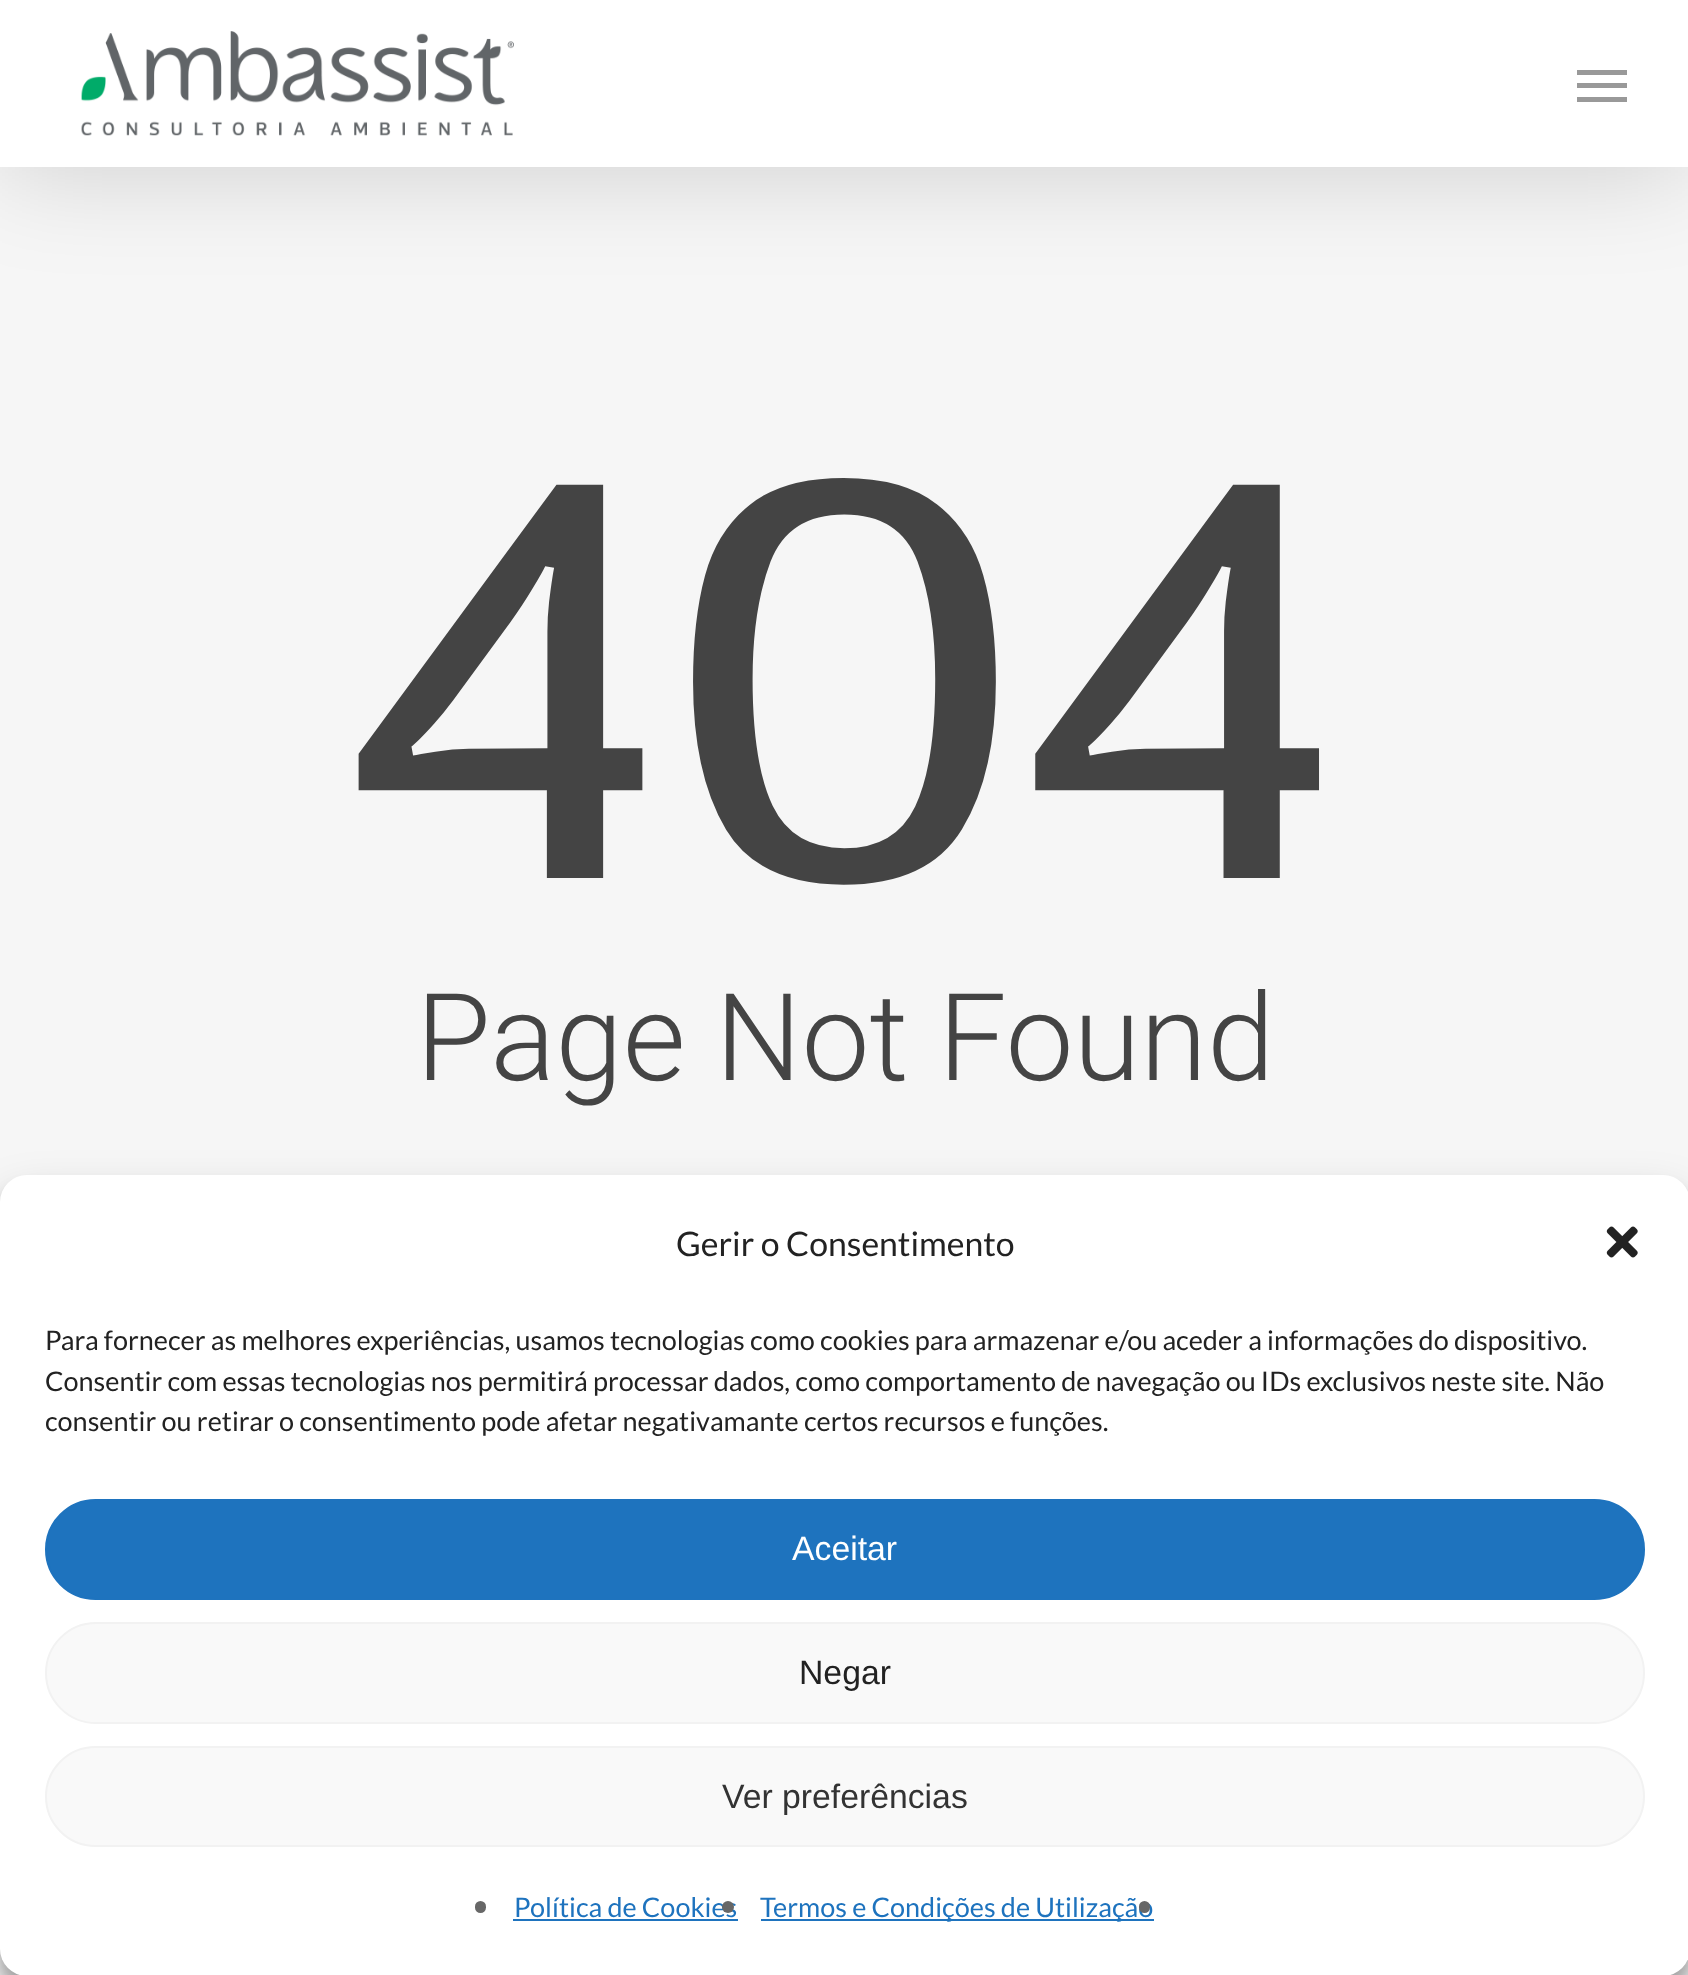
<?xml version="1.0" encoding="UTF-8"?>
<svg xmlns="http://www.w3.org/2000/svg" xmlns:xlink="http://www.w3.org/1999/xlink" width="1688" height="1975">
  <defs>
    <clipPath id="clip1"><path d="M 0 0 h 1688 v 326 h -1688 z m 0 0 h 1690 v 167 h -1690 z" clip-rule="evenodd" /></clipPath>
  </defs>
  <rect width="100%" height="100%" fill="#ffffff" />
  <rect y="167" width="1688" height="1808" fill="#f6f6f6" />
  <g clip-path="url(#clip1)">
    <rect y="7" width="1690" height="166" fill="#000000" fill-opacity="0.15" filter="blur(50.5px)" />
  </g>
  <rect y="166" width="1688" height="1" fill="#ffffff" fill-opacity="0.9" />
  <image x="81" y="31" width="433" height="105" xlink:href="image1.png" />
  <rect x="1577" y="70" width="50" height="5" fill="#999999" />
  <rect x="1577" y="97" width="50" height="5" fill="#999999" />
  <rect x="1577" y="83" width="50" height="5" fill="#999999" />
  <rect y="1188" width="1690" height="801" rx="27" fill="#000000" fill-opacity="0.23" filter="blur(7px)" />
  <rect y="1197" width="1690" height="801" rx="27" fill="#000000" fill-opacity="0.19" filter="blur(22.5px)" />
  <rect y="1175" width="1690" height="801" rx="27" fill="#ffffff" />
  <image x="1606" y="1226" width="32" height="32" xlink:href="image2.png" />
  <rect x="46" y="1500" width="1598" height="99" rx="49.5" fill="#1e73be" stroke="#1e73be" stroke-width="2" />
  <rect x="46" y="1623" width="1598" height="100" rx="50" fill="#f9f9f9" stroke="#f2f2f2" stroke-width="2" />
  <rect x="46" y="1747" width="1598" height="99" rx="49.5" fill="#f9f9f9" stroke="#f2f2f2" stroke-width="2" />
  <rect x="475" y="1901" width="11" height="12" rx="5.5" fill="#676767" />
  <rect x="513" y="1919" width="225" height="2" fill="#1e73be" />
  <rect x="761" y="1919" width="393" height="2" fill="#1e73be" />
  <text x="353" y="878" style="font-family: Voces; font-size: 562px; fill: #444444">404</text>
  <text x="416" y="1080" style="font-family: Roboto; font-size: 121.5px; font-weight: 300; fill: #444444">Page Not Found</text>
  <text x="676" y="1256" style="font-family: Lato; font-size: 33.75px; fill: #222222">Gerir o Consentimento</text>
  <text x="45" y="1350" style="font-family: Lato; font-size: 27px; fill: #222222">Para fornecer as melhores experiências, usamos tecnologias como cookies para armazenar e/ou aceder a informações do dispositivo.</text>
  <text x="45" y="1391" style="font-family: Lato; font-size: 27px; fill: #222222">Consentir com essas tecnologias nos permitirá processar dados, como comportamento de navegação ou IDs exclusivos neste site. Não</text>
  <text x="45" y="1431" style="font-family: Lato; font-size: 27px; fill: #222222">consentir ou retirar o consentimento pode afetar negativamante certos recursos e funções.</text>
  <text x="792" y="1560" style="font-family: Liberation Sans; font-size: 33.75px; fill: #ffffff">Aceitar</text>
  <text x="799" y="1684" style="font-family: Liberation Sans; font-size: 33.75px; fill: #222222">Negar</text>
  <text x="722" y="1808" style="font-family: Liberation Sans; font-size: 33.75px; fill: #333333">Ver preferências</text>
  <text x="514" y="1917" style="font-family: Lato; font-size: 27px; fill: #1e73be">Política de Cookies</text>
  <circle cx="728" cy="1907" r="6" fill="#676767" />
  <text x="760" y="1917" style="font-family: Lato; font-size: 27px; fill: #1e73be">Termos e Condições de Utilização</text>
  <rect x="1139" y="1901" width="11" height="12" rx="5.5" fill="#676767" />
</svg>
